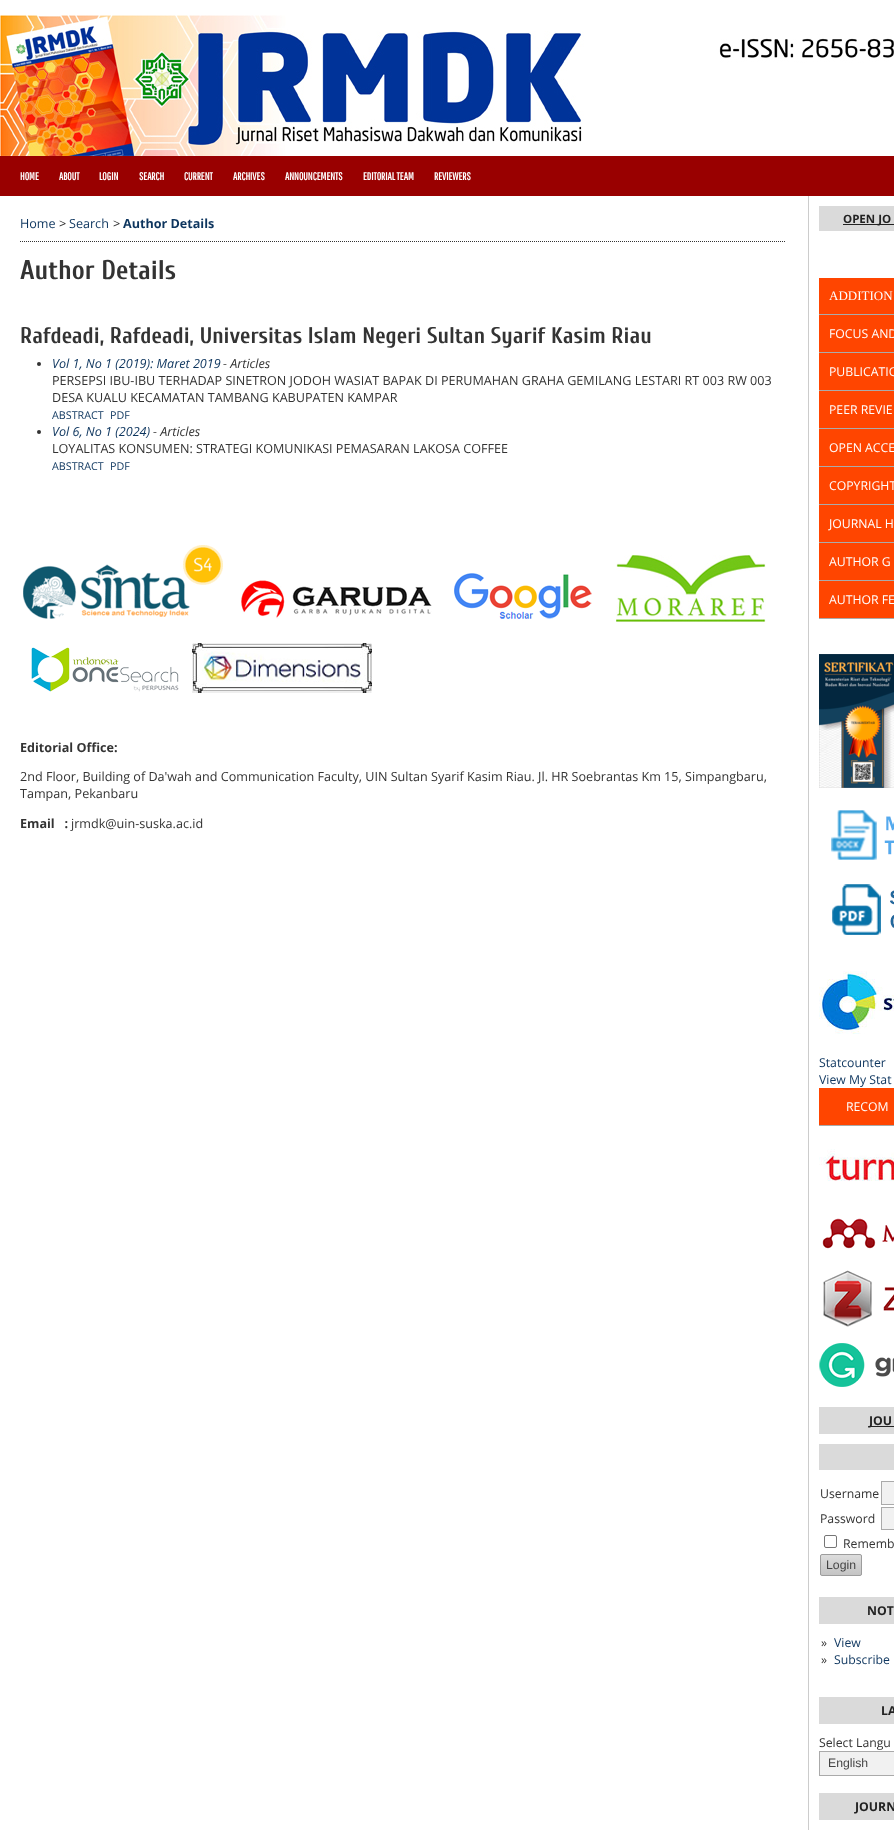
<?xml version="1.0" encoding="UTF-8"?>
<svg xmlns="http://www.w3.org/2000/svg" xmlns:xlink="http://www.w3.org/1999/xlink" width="894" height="1830">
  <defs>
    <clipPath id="clip1"><rect x="820" y="1554" width="42" height="22" rx="2" /></clipPath>
    <linearGradient id="g1" gradientUnits="userSpaceOnUse" x1="841" y1="1555" x2="841" y2="1575"><stop offset="0" stop-color="#dddddd" /><stop offset="1" stop-color="#c4c4c4" /></linearGradient>
  </defs>
  <rect width="100%" height="100%" fill="#ffffff" />
  <image x="0" y="15" width="894" height="141" xlink:href="image1.png" />
  <rect y="156" width="894" height="40" fill="#990000" />
  <path d="M 20 241.5 h 765" fill="none" stroke="#333333" stroke-dasharray="1 1" />
  <circle cx="39" cy="364" r="2" fill="#333333" />
  <circle cx="39" cy="432" r="2" fill="#333333" />
  <image x="23" y="545" width="200" height="74" xlink:href="image2.png" />
  <image x="241" y="580" width="191" height="39" xlink:href="image3.png" />
  <image x="454" y="573" width="138" height="46" xlink:href="image4.png" />
  <image x="616" y="555" width="150" height="67" xlink:href="image5.png" />
  <image x="31" y="647" width="148" height="45" xlink:href="image6.png" />
  <image x="192" y="643" width="180" height="50" xlink:href="image7.png" />
  <rect x="808" y="196" width="1" height="1634" fill="#cccccc" />
  <rect x="819" y="206" width="75" height="25" fill="#dadada" />
  <rect x="843" y="224" width="51" height="1" fill="#222222" />
  <rect x="819" y="278" width="75" height="36" fill="#ff4500" />
  <rect x="819" y="314" width="75" height="1" fill="#aaaaaa" />
  <rect x="819" y="315" width="75" height="37" fill="#ff4500" />
  <rect x="819" y="352" width="75" height="1" fill="#aaaaaa" />
  <rect x="819" y="353" width="75" height="37" fill="#ff4500" />
  <rect x="819" y="390" width="75" height="1" fill="#aaaaaa" />
  <rect x="819" y="391" width="75" height="37" fill="#ff4500" />
  <rect x="819" y="428" width="75" height="1" fill="#aaaaaa" />
  <rect x="819" y="429" width="75" height="37" fill="#ff4500" />
  <rect x="819" y="466" width="75" height="1" fill="#aaaaaa" />
  <rect x="819" y="467" width="75" height="37" fill="#ff4500" />
  <rect x="819" y="504" width="75" height="1" fill="#aaaaaa" />
  <rect x="819" y="505" width="75" height="37" fill="#ff4500" />
  <rect x="819" y="542" width="75" height="1" fill="#aaaaaa" />
  <rect x="819" y="543" width="75" height="37" fill="#ff4500" />
  <rect x="819" y="580" width="75" height="1" fill="#aaaaaa" />
  <rect x="819" y="581" width="75" height="37" fill="#ff4500" />
  <rect x="819" y="618" width="75" height="1" fill="#aaaaaa" />
  <image x="819" y="654" width="75" height="134" xlink:href="image8.png" />
  <image x="831" y="810" width="63" height="50" xlink:href="image9.png" />
  <image x="832" y="884" width="62" height="51" xlink:href="image10.png" />
  <image x="819" y="971" width="75" height="63" xlink:href="image11.png" />
  <rect x="819" y="1088" width="75" height="37" fill="#ff4500" />
  <rect x="819" y="1125" width="75" height="1" fill="#aaaaaa" />
  <image x="819" y="1149" width="75" height="32" xlink:href="image12.png" />
  <image x="822" y="1218" width="72" height="31" xlink:href="image13.png" />
  <image x="823" y="1270" width="71" height="57" xlink:href="image14.png" />
  <image x="819" y="1343" width="75" height="44" xlink:href="image15.png" />
  <rect x="819" y="1407" width="75" height="27" fill="#dadada" />
  <rect x="869" y="1426" width="25" height="1" fill="#222222" />
  <rect x="819" y="1444" width="75" height="26" fill="#dadada" />
  <rect x="881.5" y="1481.5" width="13" height="23" fill="#f1f1f1" stroke="#aaaaaa" />
  <rect x="881.5" y="1507.5" width="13" height="22" fill="#f1f1f1" stroke="#aaaaaa" />
  <rect x="824.5" y="1535.5" width="12" height="12" rx="1.5" fill="none" stroke="#767676" />
  <g clip-path="url(#clip1)">
    <rect x="820" y="1555" width="42" height="20" fill="url(#g1)" />
  </g>
  <rect x="820.5" y="1554.5" width="41" height="21" rx="1.5" fill="none" stroke="#9d9d9d" />
  <rect x="819" y="1597" width="75" height="27" fill="#dadada" />
  <rect x="819" y="1697" width="75" height="27" fill="#dadada" />
  <rect x="819.5" y="1751.5" width="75" height="24" fill="#f1f1f1" stroke="#aaaaaa" />
  <rect x="819" y="1793" width="75" height="27" fill="#dadada" />
  <text x="20" y="180" style="font-family: Pathway Gothic One; font-size: 10.75px; font-weight: bold; fill: #ffffff">HOME</text>
  <text x="59" y="180" style="font-family: Pathway Gothic One; font-size: 10.75px; font-weight: bold; fill: #ffffff">ABOUT</text>
  <text x="99" y="180" style="font-family: Pathway Gothic One; font-size: 10.75px; font-weight: bold; fill: #ffffff">LOGIN</text>
  <text x="139" y="180" style="font-family: Pathway Gothic One; font-size: 10.75px; font-weight: bold; fill: #ffffff">SEARCH</text>
  <text x="184" y="180" style="font-family: Pathway Gothic One; font-size: 10.75px; font-weight: bold; fill: #ffffff">CURRENT</text>
  <text x="233" y="180" style="font-family: Pathway Gothic One; font-size: 10.75px; font-weight: bold; fill: #ffffff">ARCHIVES</text>
  <text x="285" y="180" style="font-family: Pathway Gothic One; font-size: 10.75px; font-weight: bold; fill: #ffffff">ANNOUNCEMENTS</text>
  <text x="363" y="180" style="font-family: Pathway Gothic One; font-size: 10.75px; font-weight: bold; fill: #ffffff">EDITORIAL TEAM</text>
  <text x="434" y="180" style="font-family: Pathway Gothic One; font-size: 10.75px; font-weight: bold; fill: #ffffff">REVIEWERS</text>
  <text x="20" y="228" style="font-family: Open Sans; font-size: 12.6px; fill: #0d355e">Home</text>
  <text x="59" y="228" style="font-family: Open Sans; font-size: 12.6px; fill: #333333">&gt;</text>
  <text x="69" y="228" style="font-family: Open Sans; font-size: 12.6px; fill: #0d355e">Search</text>
  <text x="113" y="228" style="font-family: Open Sans; font-size: 12.6px; fill: #333333">&gt;</text>
  <text x="123" y="228" style="font-family: Open Sans; font-size: 12.6px; font-weight: bold; fill: #0d355e">Author Details</text>
  <text x="20" y="279" style="font-family: Cuprum; font-size: 27px; font-weight: bold; fill: #333333">Author Details</text>
  <text x="20" y="343" style="font-family: Cuprum; font-size: 22.7px; font-weight: bold; fill: #333333">Rafdeadi, Rafdeadi, Universitas Islam Negeri Sultan Syarif Kasim Riau</text>
  <text x="52" y="368" style="font-family: Open Sans; font-size: 12.6px; font-style: italic; fill: #0d355e">Vol 1, No 1 (2019): Maret 2019</text>
  <text x="223" y="368" style="font-family: Open Sans; font-size: 12.6px; font-style: italic; fill: #333333">- Articles</text>
  <text x="52" y="385" style="font-family: Open Sans; font-size: 12.6px; fill: #333333">PERSEPSI IBU-IBU TERHADAP SINETRON JODOH WASIAT BAPAK DI PERUMAHAN GRAHA GEMILANG LESTARI RT 003 RW 003</text>
  <text x="52" y="402" style="font-family: Open Sans; font-size: 12.6px; fill: #333333">DESA KUALU KECAMATAN TAMBANG KABUPATEN KAMPAR</text>
  <text x="52" y="419" style="font-family: Open Sans; font-size: 10.75px; fill: #0d355e">ABSTRACT</text>
  <text x="110" y="419" style="font-family: Open Sans; font-size: 10.75px; fill: #0d355e">PDF</text>
  <text x="52" y="436" style="font-family: Open Sans; font-size: 12.6px; font-style: italic; fill: #0d355e">Vol 6, No 1 (2024)</text>
  <text x="153" y="436" style="font-family: Open Sans; font-size: 12.6px; font-style: italic; fill: #333333">- Articles</text>
  <text x="52" y="453" style="font-family: Open Sans; font-size: 12.6px; fill: #333333">LOYALITAS KONSUMEN: STRATEGI KOMUNIKASI PEMASARAN LAKOSA COFFEE</text>
  <text x="52" y="470" style="font-family: Open Sans; font-size: 10.75px; fill: #0d355e">ABSTRACT</text>
  <text x="110" y="470" style="font-family: Open Sans; font-size: 10.75px; fill: #0d355e">PDF</text>
  <text x="20" y="752" style="font-family: Open Sans; font-size: 12.6px; font-weight: bold; fill: #333333">Editorial Office:</text>
  <text x="20" y="781" style="font-family: Open Sans; font-size: 12.6px; fill: #333333">2nd Floor, Building of Da'wah and Communication Faculty, UIN Sultan Syarif Kasim Riau. Jl. HR Soebrantas Km 15, Simpangbaru,</text>
  <text x="20" y="798" style="font-family: Open Sans; font-size: 12.6px; fill: #333333">Tampan, Pekanbaru</text>
  <text x="20" y="828" style="font-family: Open Sans; font-size: 12.6px; font-weight: bold; fill: #333333" xml:space="preserve">Email   :</text>
  <text x="71" y="828" style="font-family: Open Sans; font-size: 12.6px; fill: #333333">jrmdk@uin-suska.ac.id</text>
  <text x="843" y="223" style="font-family: Open Sans; font-size: 11.5px; font-weight: bold; fill: #222222">OPEN JO</text>
  <text x="829" y="300" style="font-family: Liberation Serif; font-size: 13px; fill: #ffffff">ADDITION</text>
  <text x="829" y="338" style="font-family: Open Sans; font-size: 12.25px; fill: #ffffff">FOCUS AND</text>
  <text x="829" y="376" style="font-family: Open Sans; font-size: 12.25px; fill: #ffffff">PUBLICATIO</text>
  <text x="829" y="414" style="font-family: Open Sans; font-size: 12.25px; fill: #ffffff">PEER REVIE</text>
  <text x="829" y="452" style="font-family: Open Sans; font-size: 12.25px; fill: #ffffff">OPEN ACCE</text>
  <text x="829" y="490" style="font-family: Open Sans; font-size: 12.25px; fill: #ffffff">COPYRIGHT</text>
  <text x="829" y="528" style="font-family: Open Sans; font-size: 12.25px; fill: #ffffff">JOURNAL H</text>
  <text x="829" y="566" style="font-family: Open Sans; font-size: 12.25px; fill: #ffffff">AUTHOR G</text>
  <text x="829" y="604" style="font-family: Open Sans; font-size: 12.25px; fill: #ffffff">AUTHOR FE</text>
  <text x="819" y="1067" style="font-family: Open Sans; font-size: 12.25px; fill: #0d355e">Statcounter</text>
  <text x="819" y="1084" style="font-family: Open Sans; font-size: 12.25px; fill: #0d355e">View My Stat</text>
  <text x="846" y="1111" style="font-family: Open Sans; font-size: 12.25px; fill: #ffffff">RECOM</text>
  <text x="869" y="1425" style="font-family: Open Sans; font-size: 12.25px; font-weight: bold; fill: #222222">JOU</text>
  <text x="820" y="1498" style="font-family: Open Sans; font-size: 12.25px; fill: #333333">Username</text>
  <text x="820" y="1523" style="font-family: Open Sans; font-size: 12.25px; fill: #333333">Password</text>
  <text x="843" y="1548" style="font-family: Open Sans; font-size: 12.25px; fill: #333333">Rememb</text>
  <text x="826" y="1569" style="font-family: Liberation Sans; font-size: 12.25px; fill: #444444">Login</text>
  <text x="867" y="1615" style="font-family: Open Sans; font-size: 12.25px; font-weight: bold; fill: #222222">NOT</text>
  <text x="821" y="1647" style="font-family: Open Sans; font-size: 12.25px; fill: #333333">»</text>
  <text x="834" y="1647" style="font-family: Open Sans; font-size: 12.25px; fill: #0d355e">View</text>
  <text x="821" y="1664" style="font-family: Open Sans; font-size: 12.25px; fill: #333333">»</text>
  <text x="834" y="1664" style="font-family: Open Sans; font-size: 12.25px; fill: #0d355e">Subscribe</text>
  <text x="881" y="1715" style="font-family: Open Sans; font-size: 12.25px; font-weight: bold; fill: #222222">LA</text>
  <text x="819" y="1747" style="font-family: Open Sans; font-size: 12.25px; fill: #333333">Select Langu</text>
  <text x="828" y="1767" style="font-family: Liberation Sans; font-size: 12.25px; fill: #444444">English</text>
  <text x="855" y="1811" style="font-family: Open Sans; font-size: 12.25px; font-weight: bold; fill: #222222">JOURN</text>
</svg>
